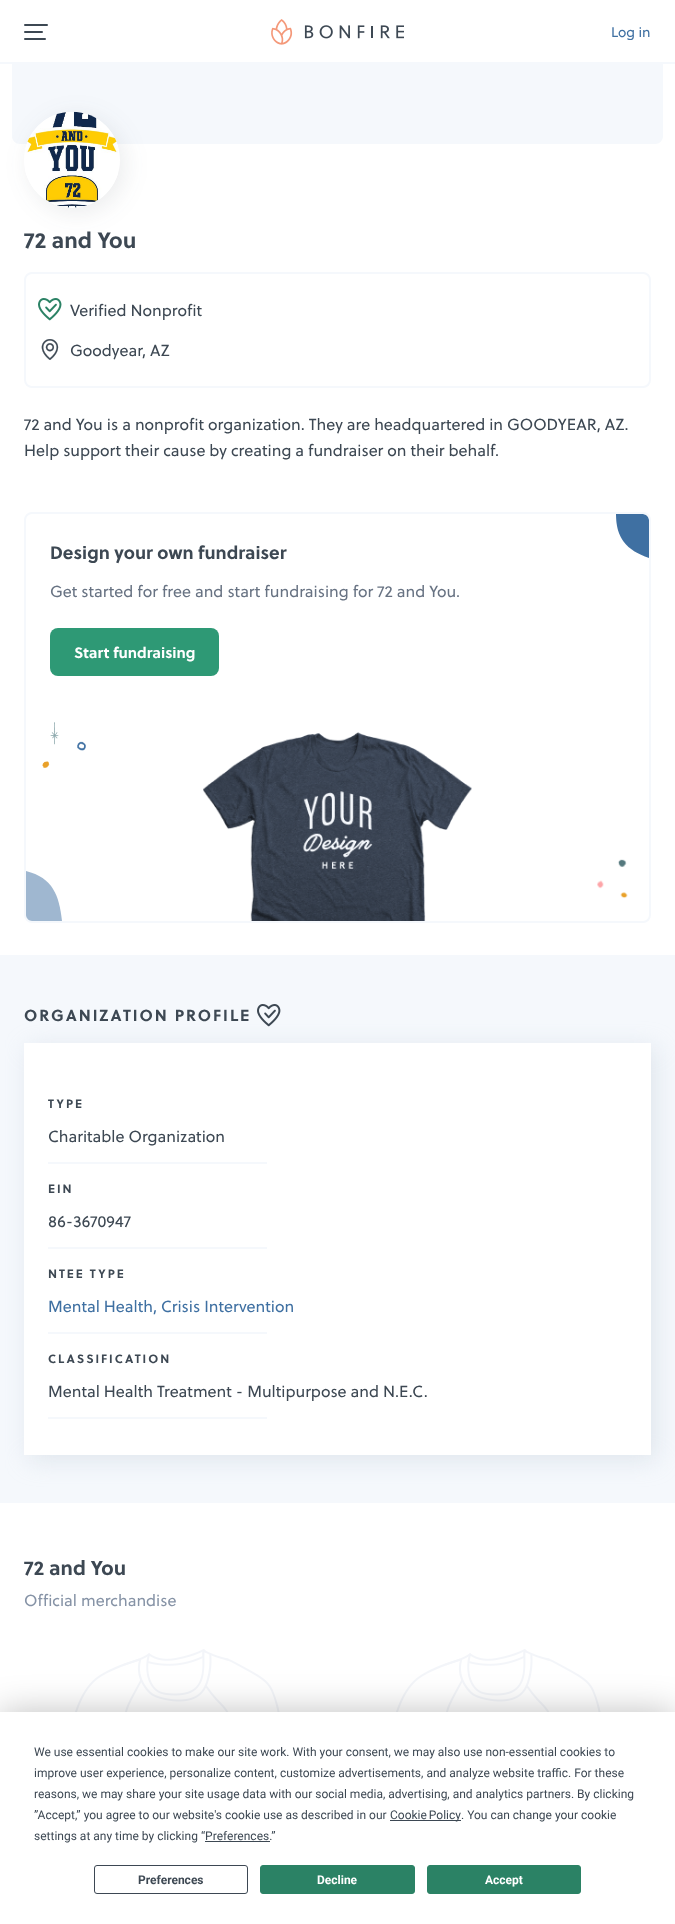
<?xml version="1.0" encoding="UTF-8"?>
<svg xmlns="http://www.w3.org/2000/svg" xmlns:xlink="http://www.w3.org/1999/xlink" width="675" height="1924">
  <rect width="100%" height="100%" fill="#ffffff" />
  <rect y="62" width="675" height="2" fill="#f5f8fc" />
  <rect x="24" y="24" width="24" height="2" rx="1" fill="#3d4853" />
  <rect x="24" y="31" width="19" height="2" rx="1" fill="#3d4853" />
  <rect x="24" y="38" width="22" height="2" rx="1" fill="#3d4853" />
  <image x="271" y="19" width="133" height="26" xlink:href="image1.png" />
  <path d="M 12 64 h 651 v 72 c 0 4.5 -3.5 8 -8 8 h -635 c -4.5 0 -8 -3.5 -8 -8 z" fill="#f5f8fc" />
  <rect x="29" y="117" width="96" height="96" rx="48" fill="#3d4853" fill-opacity="0.1" filter="blur(12.5px)" />
  <circle cx="72" cy="160" r="48" fill="#ffffff" />
  <image x="25" y="111" width="93" height="97" xlink:href="image2.png" />
  <rect x="25" y="273" width="625" height="114" rx="7" fill="none" stroke="#f5f8fc" stroke-width="2" />
  <image x="38" y="298" width="24" height="23" xlink:href="image3.png" />
  <image x="41" y="339" width="18" height="21" xlink:href="image4.png" />
  <path d="M 649 558 c -23 -8 -33 -20 -33 -44 h 27 c 3 0 6 3 6 6 z" fill="#3f70a2" />
  <rect x="25" y="513" width="625" height="409" rx="7" fill="none" stroke="#f5f8fc" stroke-width="2" />
  <rect x="50" y="628" width="169" height="48" rx="8" fill="#2e9975" />
  <image x="597" y="859" width="31" height="40" xlink:href="image5.png" />
  <image x="42" y="722" width="44" height="46" xlink:href="image6.png" />
  <image x="203" y="732" width="269" height="189" xlink:href="image7.png" />
  <path d="M 62 921 h -30 c -3 0 -6 -3 -6 -6 v -44 c 27 7 33 24 36 50 z" fill="#9fb7d0" />
  <rect y="955" width="675" height="548" fill="#f5f8fc" />
  <rect x="29" y="1048" width="627" height="412" fill="#bdcad8" fill-opacity="0.4" filter="blur(12.5px)" />
  <image x="257" y="1004" width="24" height="23" xlink:href="image8.png" />
  <rect x="24" y="1043" width="627" height="412" fill="#ffffff" />
  <rect x="48" y="1162" width="219" height="2" fill="#f5f8fc" />
  <rect x="48" y="1247" width="219" height="2" fill="#f5f8fc" />
  <rect x="48" y="1332" width="219" height="2" fill="#f5f8fc" />
  <rect x="48" y="1417" width="219" height="2" fill="#f5f8fc" />
  <image x="75" y="1649" width="205" height="63" xlink:href="image9.png" />
  <image x="396" y="1649" width="205" height="63" xlink:href="image9.png" />
  <rect y="1712" width="675" height="212" fill="#000000" fill-opacity="0.25" filter="blur(17.5px)" />
  <rect y="1712" width="675" height="212" fill="#ffffff" />
  <rect x="390" y="1820" width="71" height="1" fill="#3d4853" />
  <rect x="205" y="1841" width="65" height="1" fill="#3d4853" />
  <rect x="94.5" y="1865.5" width="153" height="28" rx="2.5" fill="none" stroke="#3d4853" />
  <rect x="260.5" y="1865.5" width="154" height="28" rx="2.5" fill="#2b8265" stroke="#2b8265" />
  <rect x="427.5" y="1865.5" width="153" height="28" rx="2.5" fill="#2b8265" stroke="#2b8265" />
  <text x="611" y="37" style="font-family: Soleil; font-size: 14px; fill: #3f70a2">Log in</text>
  <text x="24" y="248" style="font-family: Soleil; font-size: 22px; font-weight: bold; fill: #3d4853">72 and You</text>
  <text x="70" y="316" style="font-family: Soleil; font-size: 16px; fill: #3d4853">Verified Nonprofit</text>
  <text x="70" y="356" style="font-family: Soleil; font-size: 16px; fill: #3d4853">Goodyear, AZ</text>
  <text x="24" y="430" style="font-family: Soleil; font-size: 16px; fill: #3d4853">72 and You is a nonprofit organization. They are headquartered in GOODYEAR, AZ.</text>
  <text x="24" y="456" style="font-family: Soleil; font-size: 16px; fill: #3d4853">Help support their cause by creating a fundraiser on their behalf.</text>
  <text x="50" y="559" style="font-family: Soleil; font-size: 18px; font-weight: bold; fill: #3d4853">Design your own fundraiser</text>
  <text x="50" y="597" style="font-family: Soleil; font-size: 16px; fill: #687383">Get started for free and start fundraising for 72 and You.</text>
  <text x="74" y="658" style="font-family: Soleil; font-size: 15px; font-weight: bold; fill: #ffffff">Start fundraising</text>
  <text x="24" y="1021" style="font-family: Soleil; font-size: 16px; font-weight: bold; letter-spacing: 2px; fill: #3d4853">ORGANIZATION PROFILE</text>
  <text x="48" y="1108" style="font-family: Soleil; font-size: 12px; font-weight: bold; letter-spacing: 2px; fill: #3d4853">TYPE</text>
  <text x="48" y="1142" style="font-family: Soleil; font-size: 16px; fill: #3d4853">Charitable Organization</text>
  <text x="48" y="1193" style="font-family: Soleil; font-size: 12px; font-weight: bold; letter-spacing: 2px; fill: #3d4853">EIN</text>
  <text x="48" y="1227" style="font-family: Soleil; font-size: 16px; fill: #3d4853">86-3670947</text>
  <text x="48" y="1278" style="font-family: Soleil; font-size: 12px; font-weight: bold; letter-spacing: 2px; fill: #3d4853">NTEE TYPE</text>
  <text x="48" y="1312" style="font-family: Soleil; font-size: 16px; fill: #3f70a2">Mental Health, Crisis Intervention</text>
  <text x="48" y="1363" style="font-family: Soleil; font-size: 12px; font-weight: bold; letter-spacing: 2px; fill: #3d4853">CLASSIFICATION</text>
  <text x="48" y="1397" style="font-family: Soleil; font-size: 16px; fill: #3d4853">Mental Health Treatment - Multipurpose and N.E.C.</text>
  <text x="24" y="1575" style="font-family: Soleil; font-size: 20px; font-weight: bold; fill: #3d4853">72 and You</text>
  <text x="24" y="1606" style="font-family: Soleil; font-size: 16px; fill: #8693a6">Official merchandise</text>
  <text x="34" y="1756" style="font-family: Roboto; font-size: 12px; fill: #3d4853">We use essential cookies to make our site work. With your consent, we may also use non-essential cookies to</text>
  <text x="34" y="1777" style="font-family: Roboto; font-size: 12px; fill: #3d4853">improve user experience, personalize content, customize advertisements, and analyze website traffic. For these</text>
  <text x="34" y="1798" style="font-family: Roboto; font-size: 12px; fill: #3d4853">reasons, we may share your site usage data with our social media, advertising, and analytics partners. By clicking</text>
  <text x="34" y="1819" style="font-family: Roboto; font-size: 12px; fill: #3d4853">”Accept,” you agree to our website's cookie use as described in our</text>
  <text x="390" y="1819" word-spacing="-1" style="font-family: Roboto; font-size: 12px; fill: #3d4853">Cookie Policy</text>
  <text x="461" y="1819" style="font-family: Roboto; font-size: 12px; fill: #3d4853">. You can change your cookie</text>
  <text x="34" y="1840" style="font-family: Roboto; font-size: 12px; fill: #3d4853">settings at any time by clicking “Preferences.”</text>
  <text x="138" y="1884" style="font-family: Roboto; font-size: 12px; font-weight: bold; fill: #3d4853">Preferences</text>
  <text x="317" y="1884" style="font-family: Roboto; font-size: 12px; font-weight: bold; fill: #ffffff">Decline</text>
  <text x="485" y="1884" style="font-family: Roboto; font-size: 12px; font-weight: bold; fill: #ffffff">Accept</text>
</svg>
